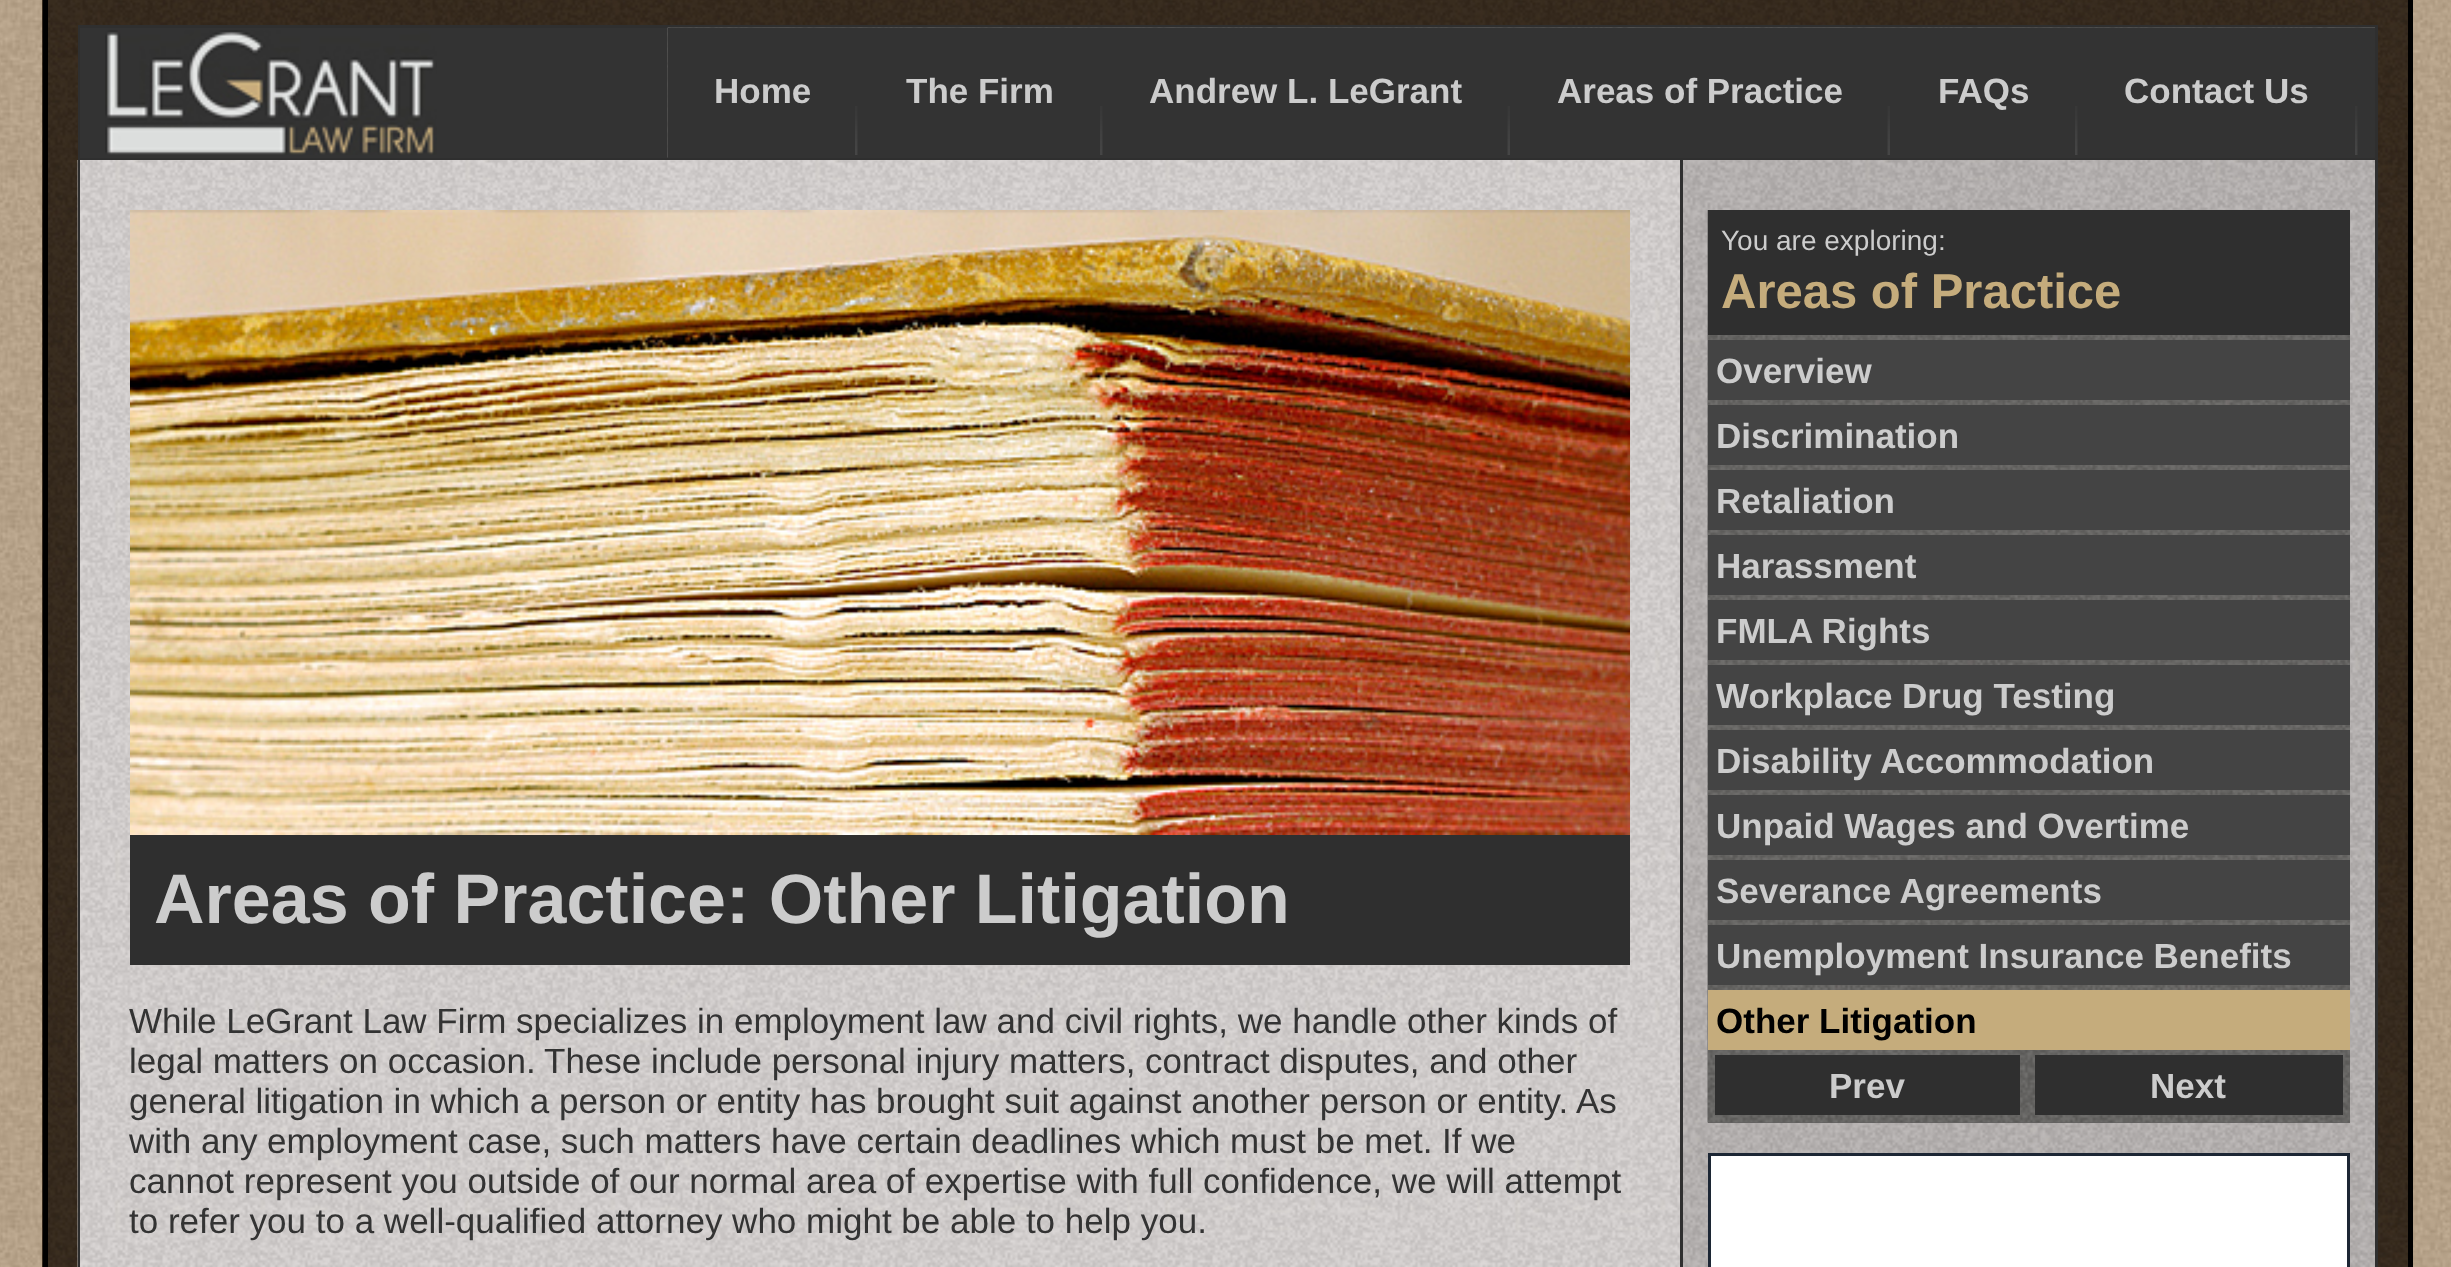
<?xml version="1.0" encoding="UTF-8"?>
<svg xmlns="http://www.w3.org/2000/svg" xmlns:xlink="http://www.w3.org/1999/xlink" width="2451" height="1267">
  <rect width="100%" height="100%" fill="#ffffff" />
  <image x="0" y="0" width="2451" height="1267" xlink:href="image1.png" />
  <image x="42" y="0" width="2366" height="1267" xlink:href="image2.png" />
  <rect x="2408" width="5" height="1267" fill="#000000" />
  <rect x="43" width="5" height="1267" fill="#000000" />
  <rect x="79.5" y="26.5" width="2297" height="132" fill="none" stroke="#2f2f2f" stroke-width="3" />
  <rect x="80" y="28" width="588" height="130" fill="#333333" />
  <image x="105" y="30" width="332" height="125" xlink:href="image3.png" />
  <image x="667" y="27" width="1708" height="131" xlink:href="image4.png" />
  <rect x="668" y="28" width="1707" height="130" fill="#333333" />
  <image x="855" y="106" width="3" height="49" xlink:href="image5.png" />
  <image x="1100" y="106" width="3" height="49" xlink:href="image5.png" />
  <image x="1507" y="106" width="3" height="49" xlink:href="image6.png" />
  <image x="1887" y="106" width="3" height="49" xlink:href="image6.png" />
  <image x="2075" y="106" width="3" height="49" xlink:href="image5.png" />
  <image x="2355" y="106" width="3" height="49" xlink:href="image5.png" />
  <image x="77" y="160" width="2298" height="1107" xlink:href="image7.png" />
  <rect x="2375" y="160" width="3" height="1107" fill="#2f2f2f" />
  <rect x="78" y="160" width="2" height="1107" fill="#2f2f2f" />
  <image x="80" y="160" width="1600" height="1107" xlink:href="image8.png" />
  <rect x="1680" y="160" width="3" height="1107" fill="#2f2f2f" />
  <image x="130" y="210" width="1500" height="625" xlink:href="image9.png" />
  <rect x="130" y="835" width="1500" height="130" fill="#2f2f2f" />
  <rect x="1708" y="1122" width="642" height="1" fill="#646262" />
  <image x="1707" y="210" width="643" height="913" xlink:href="image10.png" />
  <rect x="1708" y="210" width="642" height="125" fill="#2f2f2f" />
  <rect x="1708" y="340" width="642" height="60" fill="#444444" />
  <rect x="1708" y="405" width="642" height="60" fill="#444444" />
  <rect x="1708" y="470" width="642" height="60" fill="#444444" />
  <rect x="1708" y="535" width="642" height="60" fill="#444444" />
  <rect x="1708" y="600" width="642" height="60" fill="#444444" />
  <rect x="1708" y="665" width="642" height="60" fill="#444444" />
  <rect x="1708" y="730" width="642" height="60" fill="#444444" />
  <rect x="1708" y="795" width="642" height="60" fill="#444444" />
  <rect x="1708" y="860" width="642" height="60" fill="#444444" />
  <rect x="1708" y="925" width="642" height="60" fill="#444444" />
  <rect x="1708" y="990" width="642" height="60" fill="#c5ac7c" />
  <rect x="1715" y="1055" width="305" height="60" fill="#2f2f2f" />
  <rect x="2035" y="1055" width="308" height="60" fill="#2f2f2f" />
  <rect x="1709.5" y="1154.5" width="639" height="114" fill="#ffffff" stroke="#1c2634" stroke-width="3" />
  <text x="714" y="103" style="font-family: Liberation Sans; font-size: 35px; font-weight: bold; fill: #cccccc">Home</text>
  <text x="906" y="103" style="font-family: Liberation Sans; font-size: 35px; font-weight: bold; fill: #cccccc">The Firm</text>
  <text x="1149" y="103" style="font-family: Liberation Sans; font-size: 35px; font-weight: bold; fill: #cccccc">Andrew L. LeGrant</text>
  <text x="1557" y="103" style="font-family: Liberation Sans; font-size: 35px; font-weight: bold; fill: #cccccc">Areas of Practice</text>
  <text x="1938" y="103" style="font-family: Liberation Sans; font-size: 35px; font-weight: bold; fill: #cccccc">FAQs</text>
  <text x="2124" y="103" style="font-family: Liberation Sans; font-size: 35px; font-weight: bold; fill: #cccccc">Contact Us</text>
  <text x="154" y="923" style="font-family: Liberation Sans; font-size: 70px; font-weight: bold; fill: #cccccc">Areas of Practice: Other Litigation</text>
  <text x="129" y="1033" style="font-family: Liberation Sans; font-size: 35px; fill: #333333">While LeGrant Law Firm specializes in employment law and civil rights, we handle other kinds of</text>
  <text x="129" y="1073" style="font-family: Liberation Sans; font-size: 35px; fill: #333333">legal matters on occasion.</text>
  <text x="544" y="1073" style="font-family: Liberation Sans; font-size: 35px; fill: #333333">These include personal injury matters, contract disputes, and other</text>
  <text x="129" y="1113" style="font-family: Liberation Sans; font-size: 35px; fill: #333333">general litigation in which a person or entity has brought suit against another person or entity. As</text>
  <text x="129" y="1153" style="font-family: Liberation Sans; font-size: 35px; fill: #333333">with any employment case, such matters have certain deadlines which must be met. If we</text>
  <text x="129" y="1193" style="font-family: Liberation Sans; font-size: 35px; fill: #333333">cannot represent you outside of our normal area of expertise with full confidence, we will attempt</text>
  <text x="129" y="1233" style="font-family: Liberation Sans; font-size: 35px; fill: #333333">to refer you to a well-qualified attorney who might be able to help you.</text>
  <text x="1721" y="250" style="font-family: Liberation Sans; font-size: 28px; fill: #cccccc">You are exploring:</text>
  <text x="1721" y="308" style="font-family: Liberation Sans; font-size: 49px; font-weight: bold; fill: #c5ac7c">Areas of Practice</text>
  <text x="1716" y="383" style="font-family: Liberation Sans; font-size: 35px; font-weight: bold; fill: #cccccc">Overview</text>
  <text x="1716" y="448" style="font-family: Liberation Sans; font-size: 35px; font-weight: bold; fill: #cccccc">Discrimination</text>
  <text x="1716" y="513" style="font-family: Liberation Sans; font-size: 35px; font-weight: bold; fill: #cccccc">Retaliation</text>
  <text x="1716" y="578" style="font-family: Liberation Sans; font-size: 35px; font-weight: bold; fill: #cccccc">Harassment</text>
  <text x="1716" y="643" style="font-family: Liberation Sans; font-size: 35px; font-weight: bold; fill: #cccccc">FMLA Rights</text>
  <text x="1716" y="708" style="font-family: Liberation Sans; font-size: 35px; font-weight: bold; fill: #cccccc">Workplace Drug Testing</text>
  <text x="1716" y="773" style="font-family: Liberation Sans; font-size: 35px; font-weight: bold; fill: #cccccc">Disability Accommodation</text>
  <text x="1716" y="838" style="font-family: Liberation Sans; font-size: 35px; font-weight: bold; fill: #cccccc">Unpaid Wages and Overtime</text>
  <text x="1716" y="903" style="font-family: Liberation Sans; font-size: 35px; font-weight: bold; fill: #cccccc">Severance Agreements</text>
  <text x="1716" y="968" style="font-family: Liberation Sans; font-size: 35px; font-weight: bold; fill: #cccccc">Unemployment Insurance Benefits</text>
  <text x="1716" y="1033" style="font-family: Liberation Sans; font-size: 35px; font-weight: bold; fill: #000000">Other Litigation</text>
  <text x="1829" y="1098" style="font-family: Liberation Sans; font-size: 35px; font-weight: bold; fill: #cccccc">Prev</text>
  <text x="2150" y="1098" style="font-family: Liberation Sans; font-size: 35px; font-weight: bold; fill: #cccccc">Next</text>
</svg>
